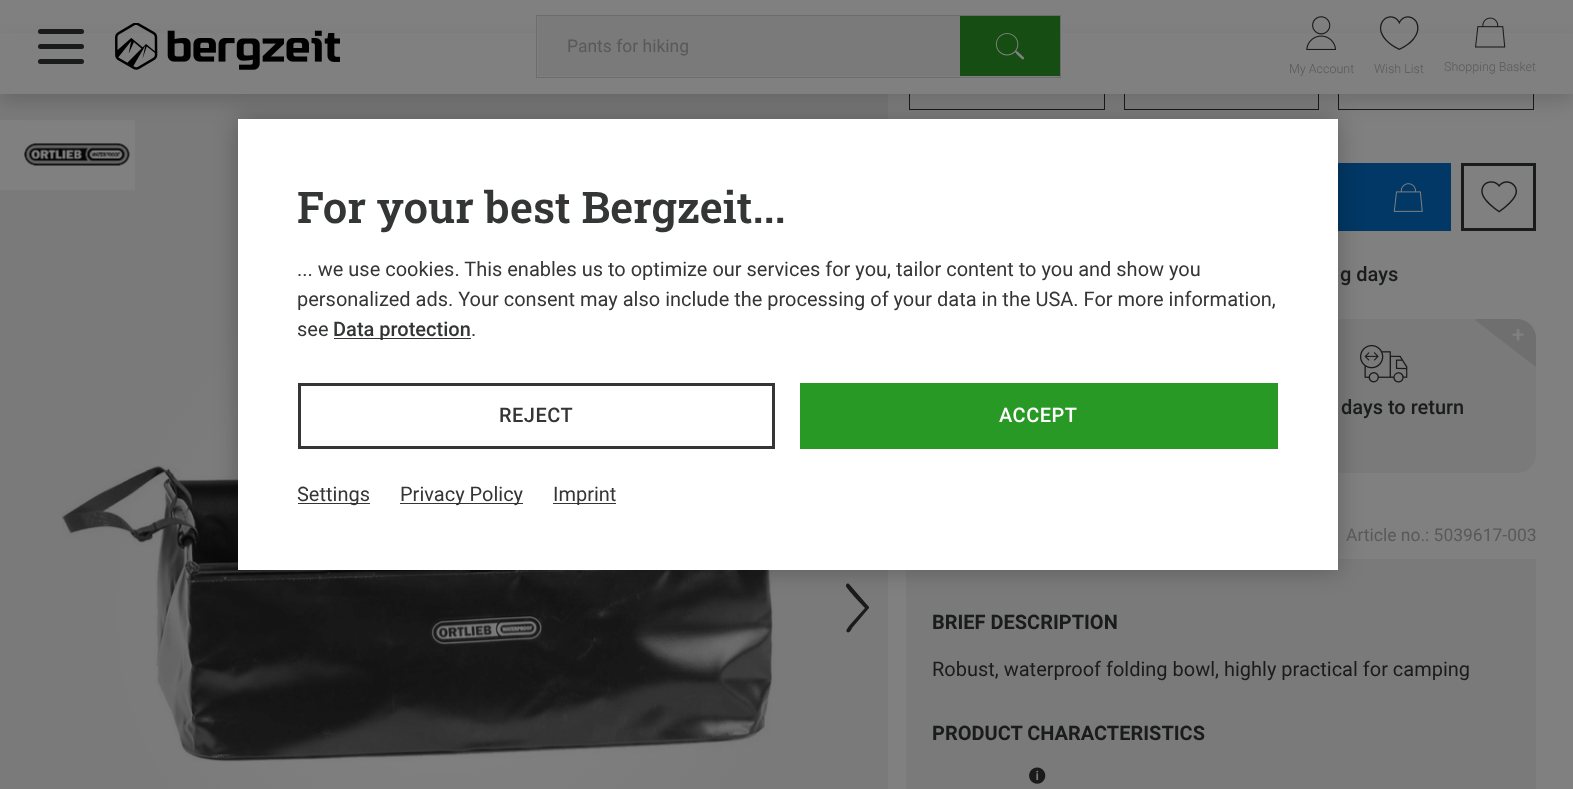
<?xml version="1.0" encoding="UTF-8"?>
<svg xmlns="http://www.w3.org/2000/svg" xmlns:xlink="http://www.w3.org/1999/xlink" width="1573" height="789">
  <defs>
    <radialGradient id="g1" gradientUnits="userSpaceOnUse" cx="444" cy="609" r="383"><stop offset="0.27" stop-color="#000000" stop-opacity="0" /><stop offset="0.95" stop-color="#000000" stop-opacity="0.05" /></radialGradient>
  </defs>
  <rect width="100%" height="100%" fill="#808080" />
  <rect y="94" width="888" height="695" fill="#7a7a7a" />
  <rect y="120" width="135" height="70" fill="#808080" />
  <rect x="909.5" y="54.5" width="195" height="55" fill="none" stroke="#1a1b1b" />
  <rect x="1124.5" y="54.5" width="194" height="55" fill="none" stroke="#1a1b1b" />
  <rect x="1338.5" y="54.5" width="195" height="55" fill="none" stroke="#1a1b1b" />
  <rect y="44" width="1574" height="57" fill="#000000" fill-opacity="0.16" filter="blur(10px)" />
  <rect y="33" width="1573" height="61" fill="#808080" />
  <rect x="38" y="44" width="46" height="5" rx="2.5" fill="#1a1b1b" />
  <rect x="38" y="29" width="46" height="5" rx="2.5" fill="#1a1b1b" />
  <rect x="38" y="59" width="46" height="5" rx="2.5" fill="#1a1b1b" />
  <image x="115" y="23" width="225" height="47" xlink:href="image1.png" />
  <rect x="536.5" y="15.5" width="524" height="62" fill="none" stroke="#6c6c6c" />
  <rect x="538" y="16" width="422" height="60" fill="#7a7a7a" />
  <rect x="960" y="16" width="100" height="60" fill="#154d13" />
  <image x="995" y="33" width="29" height="27" xlink:href="image2.png" />
  <image x="1306" y="16" width="31" height="34" xlink:href="image3.png" />
  <image x="1380" y="16" width="39" height="34" xlink:href="image4.png" />
  <image x="1475" y="17" width="31" height="31" xlink:href="image5.png" />
  <rect x="61" y="226" width="765" height="563" fill="#808080" />
  <image x="62" y="453" width="763" height="309" xlink:href="image7.png" />
  <rect x="61" y="226" width="765" height="563" fill="url(#g1)" />
  <path d="M 869 608 v -1 l -20 -23 c -2 -1 -3 0 -3 2 c 0 2 16 19 19 22 l -16 18 c 0 1 -4 4 -2 6 c 2 2 5 -3 5 -4 z" fill="#1a1b1b" />
  <rect x="1338" y="163" width="113" height="68" fill="#023865" />
  <rect x="1230" y="319" width="306" height="154" rx="19" fill="#7a7a7a" />
  <image x="1360" y="345" width="48" height="38" xlink:href="image10.png" />
  <rect x="906" y="559" width="630" height="230" fill="#7a7a7a" />
  <rect x="238" y="119" width="1100" height="451" fill="#000000" fill-opacity="0.25" filter="blur(12.5px)" />
  <rect x="238" y="119" width="1100" height="451" fill="#ffffff" />
  <rect x="334" y="338" width="137" height="1" fill="#343535" />
  <rect x="299.5" y="384.5" width="474" height="63" fill="none" stroke="#343535" stroke-width="3" />
  <rect x="800" y="383" width="478" height="66" fill="#299926" />
  <rect x="298" y="503" width="72" height="1" fill="#343535" />
  <rect x="400" y="503" width="123" height="1" fill="#343535" />
  <rect x="553" y="503" width="63" height="1" fill="#343535" />
  <image x="24" y="143" width="106" height="23" xlink:href="image6.png" />
  <image x="1393" y="183" width="30" height="29" xlink:href="image8.png" />
  <rect x="1462.5" y="164.5" width="72" height="65" fill="none" stroke="#1a1b1b" stroke-width="3" />
  <image x="1481" y="181" width="36" height="32" xlink:href="image9.png" />
  <path d="M 1536 367 l -61 -47 l 1 -1 h 41 c 10 0 19 9 19 19 z" fill="#6f6f6f" />
  <image x="1029" y="767" width="17" height="17" xlink:href="image11.png" />
  <text x="567" y="52" style="font-family: Roboto; font-size: 17.5px; fill: #595959">Pants for hiking</text>
  <text x="1289" y="73" style="font-family: Roboto; font-size: 12.5px; font-weight: 300; fill: #595959">My Account</text>
  <text x="1374" y="73" style="font-family: Roboto; font-size: 12.5px; font-weight: 300; fill: #595959">Wish List</text>
  <text x="1444" y="71" style="font-family: Roboto; font-size: 12.5px; font-weight: 300; fill: #595959">Shopping Basket</text>
  <text x="297" y="223" style="font-family: Roboto Slab; font-size: 43.75px; font-weight: 600; fill: #343535">For your best Bergzeit...</text>
  <text x="297" y="276" style="font-family: Roboto; font-size: 20px; fill: #343535">... we use cookies. This enables us to optimize our services for you, tailor content to you and show you</text>
  <text x="297" y="306" style="font-family: Roboto; font-size: 20px; fill: #343535">personalized ads. Your consent may also include the processing of your data in the USA. For more information,</text>
  <text x="297" y="336" style="font-family: Roboto; font-size: 20px; fill: #343535">see</text>
  <text x="333" y="336" style="font-family: Roboto; font-size: 20px; font-weight: 500; fill: #343535">Data protection</text>
  <text x="471" y="336" style="font-family: Roboto; font-size: 20px; fill: #343535">.</text>
  <text x="499" y="422" style="font-family: Roboto; font-size: 20px; font-weight: 500; letter-spacing: 0.5px; fill: #343535">REJECT</text>
  <text x="999" y="422" style="font-family: Roboto; font-size: 20px; font-weight: 500; letter-spacing: 0.5px; fill: #ffffff">ACCEPT</text>
  <text x="297" y="501" style="font-family: Roboto; font-size: 20px; fill: #343535">Settings</text>
  <text x="400" y="501" style="font-family: Roboto; font-size: 20px; fill: #343535">Privacy Policy</text>
  <text x="553" y="501" style="font-family: Roboto; font-size: 20px; fill: #343535">Imprint</text>
  <text x="1340" y="281" style="font-family: Roboto; font-size: 20px; font-weight: 500; fill: #1a1b1b">g days</text>
  <text x="1512" y="342" style="font-family: Roboto; font-size: 22px; font-weight: 500; fill: #808080">+</text>
  <text x="1341" y="414" style="font-family: Roboto; font-size: 20px; font-weight: 500; fill: #1a1b1b">days to return</text>
  <text x="1346" y="541" style="font-family: Roboto; font-size: 17.5px; fill: #595959">Article no.: 5039617-003</text>
  <text x="932" y="629" style="font-family: Roboto; font-size: 20px; font-weight: bold; fill: #1a1b1b">BRIEF DESCRIPTION</text>
  <text x="932" y="676" style="font-family: Roboto; font-size: 20px; fill: #1a1b1b">Robust, waterproof folding bowl, highly practical for camping</text>
  <text x="932" y="740" style="font-family: Roboto; font-size: 20px; font-weight: bold; fill: #1a1b1b">PRODUCT CHARACTERISTICS</text>
</svg>
